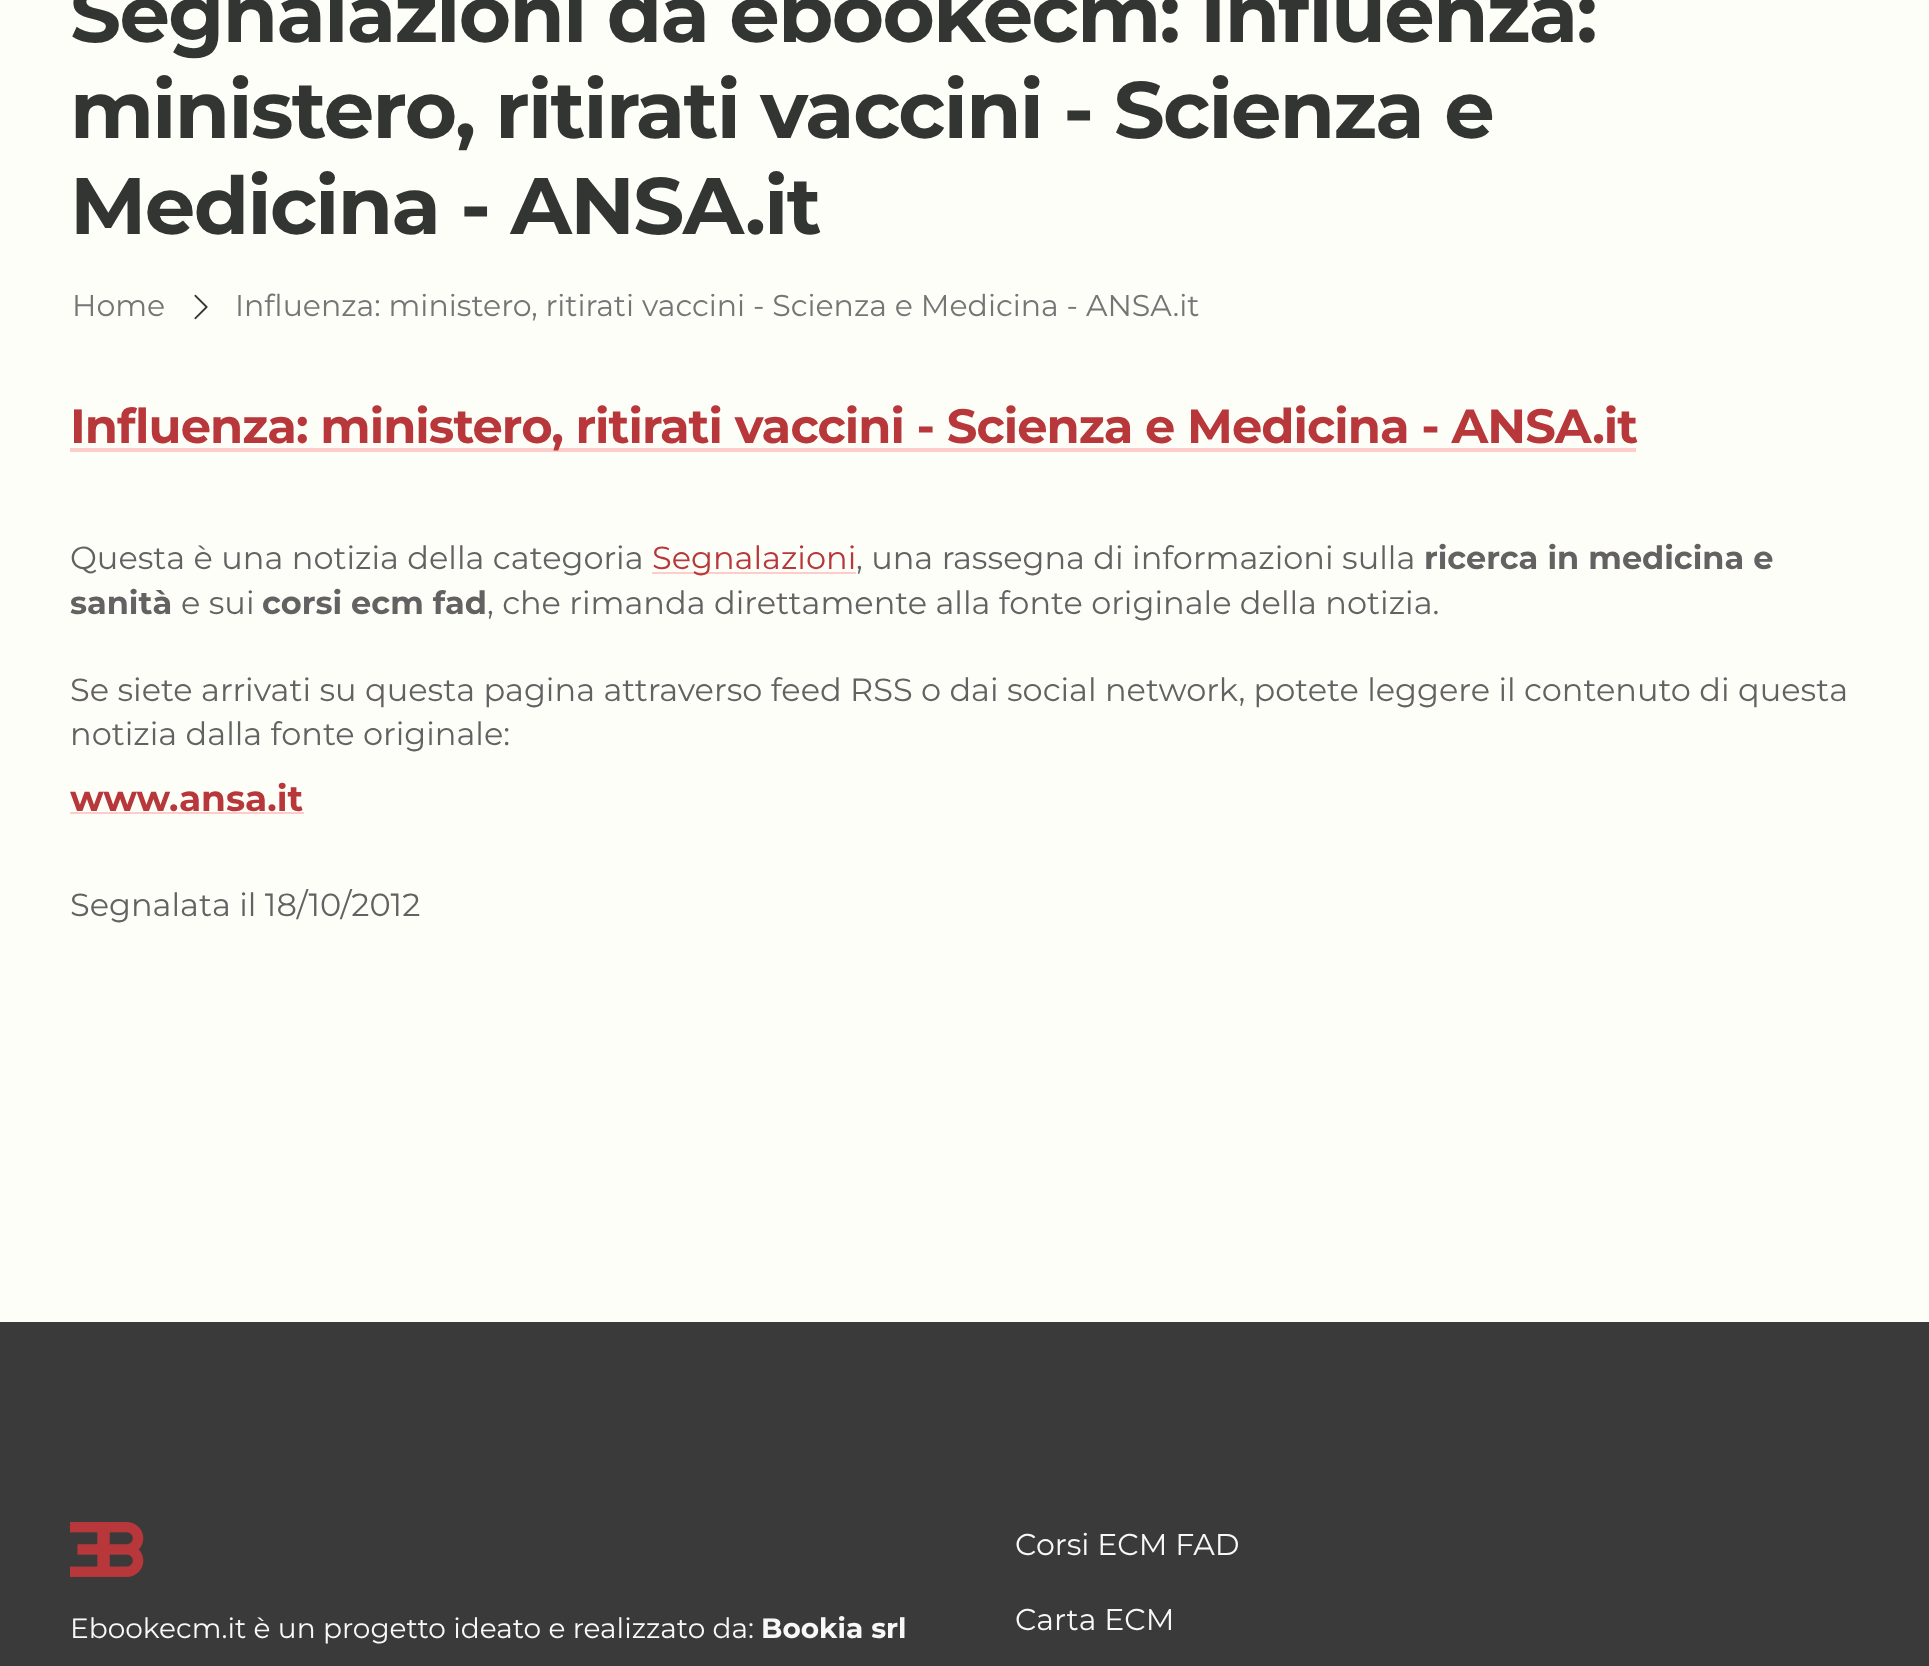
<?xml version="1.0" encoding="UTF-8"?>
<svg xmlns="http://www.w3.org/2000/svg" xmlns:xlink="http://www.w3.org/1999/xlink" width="1929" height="1666">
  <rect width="100%" height="100%" fill="#fefef9" />
  <image x="194" y="294" width="14" height="26" xlink:href="image1.png" />
  <rect x="70" y="448" width="1566" height="4" fill="#ffcccc" />
  <rect x="652" y="572" width="204" height="2" fill="#ffcccc" />
  <rect x="70" y="812" width="234" height="2" fill="#ffcccc" />
  <rect y="1322" width="1929" height="344" fill="#3a3a3a" />
  <image x="70" y="1522" width="74" height="55" xlink:href="image2.png" />
  <text x="70" y="42" style="font-family: Montserrat; font-size: 80px; font-weight: bold; letter-spacing: -1.6px; fill: #333533">Segnalazioni da ebookecm: Influenza:</text>
  <text x="70" y="138" style="font-family: Montserrat; font-size: 80px; font-weight: bold; letter-spacing: -1.6px; fill: #333533">ministero, ritirati vaccini - Scienza e</text>
  <text x="70" y="234" style="font-family: Montserrat; font-size: 80px; font-weight: bold; letter-spacing: -1.6px; fill: #333533">Medicina - ANSA.it</text>
  <text x="72" y="316" style="font-family: Montserrat; font-size: 30px; fill: #747574">Home</text>
  <text x="235" y="316" style="font-family: Montserrat; font-size: 30px; fill: #747574">Influenza: ministero, ritirati vaccini - Scienza e Medicina - ANSA.it</text>
  <text x="70" y="443" style="font-family: Montserrat; font-size: 48px; font-weight: bold; letter-spacing: -0.95px; fill: #b7373a">Influenza: ministero, ritirati vaccini - Scienza e Medicina - ANSA.it</text>
  <text x="70" y="569" style="font-family: Montserrat; font-size: 32px; fill: #636161">Questa è una notizia della categoria</text>
  <text x="652" y="569" style="font-family: Montserrat; font-size: 32px; fill: #b7373a">Segnalazioni</text>
  <text x="856" y="569" style="font-family: Montserrat; font-size: 32px; fill: #636161">, una rassegna di informazioni sulla</text>
  <text x="1424" y="569" style="font-family: Montserrat; font-size: 32px; font-weight: bold; fill: #636161">ricerca in medicina e</text>
  <text x="70" y="614" style="font-family: Montserrat; font-size: 32px; font-weight: bold; fill: #636161">sanità</text>
  <text x="181" y="614" style="font-family: Montserrat; font-size: 32px; fill: #636161">e sui</text>
  <text x="262" y="614" style="font-family: Montserrat; font-size: 32px; font-weight: bold; fill: #636161">corsi ecm fad</text>
  <text x="487" y="614" style="font-family: Montserrat; font-size: 32px; fill: #636161">, che rimanda direttamente alla fonte originale della notizia.</text>
  <text x="70" y="701" style="font-family: Montserrat; font-size: 32px; fill: #636161">Se siete arrivati su questa pagina attraverso feed RSS o dai social network, potete leggere il contenuto di questa</text>
  <text x="70" y="745" style="font-family: Montserrat; font-size: 32px; fill: #636161">notizia dalla fonte originale:</text>
  <text x="70" y="811" style="font-family: Montserrat; font-size: 36px; font-weight: bold; fill: #b7373a">www.ansa.it</text>
  <text x="70" y="916" style="font-family: Montserrat; font-size: 32px; fill: #636161">Segnalata il 18/10/2012</text>
  <text x="70" y="1638" style="font-family: Montserrat; font-size: 28px; fill: #f8f8f8">Ebookecm.it è un progetto ideato e realizzato da:</text>
  <text x="761" y="1638" style="font-family: Montserrat; font-size: 28px; font-weight: bold; fill: #f8f8f8">Bookia srl</text>
  <text x="1015" y="1555" style="font-family: Montserrat; font-size: 30px; fill: #f8f8f8">Corsi ECM FAD</text>
  <text x="1015" y="1630" style="font-family: Montserrat; font-size: 30px; fill: #f8f8f8">Carta ECM</text>
</svg>
